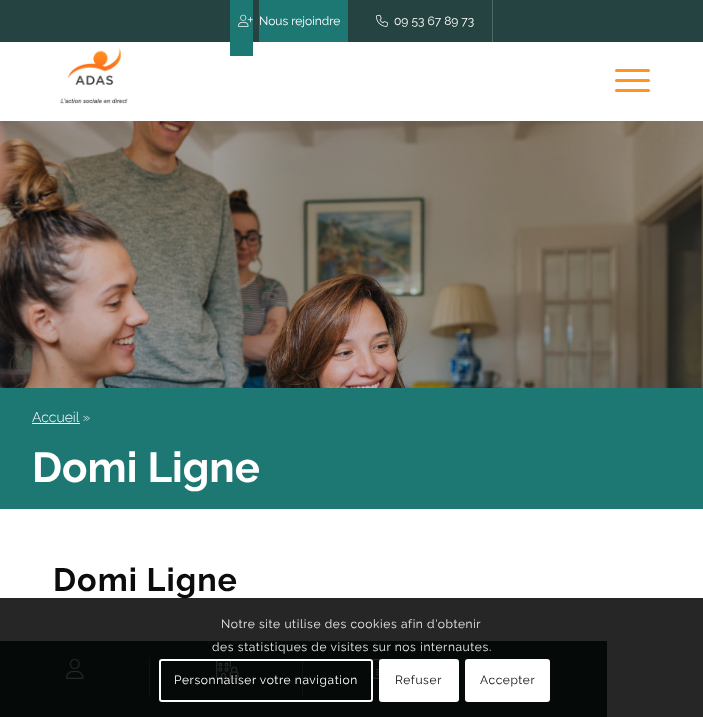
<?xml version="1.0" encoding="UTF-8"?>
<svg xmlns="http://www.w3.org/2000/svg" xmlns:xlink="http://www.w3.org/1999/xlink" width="703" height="717">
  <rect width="100%" height="100%" fill="#ffffff" />
  <rect width="703" height="42" fill="#254441" />
  <rect x="230" width="23" height="56" fill="#1d7874" />
  <rect x="259" width="89" height="42" fill="#1d7874" />
  <image x="238" y="14" width="15" height="13" xlink:href="image1.png" />
  <rect x="492" width="1" height="42" fill="#506966" />
  <image x="376" y="14" width="12" height="13" xlink:href="image2.png" />
  <image x="60" y="48" width="68" height="56" xlink:href="image3.png" />
  <rect x="615" y="79" width="35" height="3" rx="1.5" fill="#ff9422" />
  <rect x="615" y="69" width="35" height="3" rx="1.5" fill="#ff9422" />
  <rect x="615" y="89" width="35" height="3" rx="1.5" fill="#ff9422" />
  <image x="0" y="121" width="703" height="267" xlink:href="image4.png" />
  <rect y="388" width="703" height="121" fill="#1d7874" />
  <rect x="32" y="423" width="48" height="1" fill="#ffffff" />
  <rect y="641" width="607" height="76" fill="#254441" />
  <image x="66" y="659" width="18" height="20" xlink:href="image5.png" />
  <rect x="149" y="658" width="1" height="38" fill="#6b807e" />
  <image x="216" y="661" width="23" height="18" xlink:href="image6.png" />
  <rect x="302" y="658" width="1" height="38" fill="#6b807e" />
  <rect x="454" y="658" width="1" height="1" fill="#6b807e" />
  <image x="372" y="659" width="10" height="20" xlink:href="image7.png" />
  <text x="259" y="25" style="font-family: Raleway; font-size: 12px; fill: #ffffff">Nous rejoindre</text>
  <text x="394" y="25" style="font-family: Raleway; font-size: 12px; fill: #ffffff">09 53 67 89 73</text>
  <text x="32" y="422" style="font-family: Raleway; font-size: 14px; font-weight: 300; fill: #ffffff">Accueil »</text>
  <text x="32" y="482" style="font-family: Raleway; font-size: 42px; font-weight: bold; fill: #ffffff">Domi Ligne</text>
  <text x="53" y="591" style="font-family: Raleway; font-size: 32.25px; font-weight: bold; letter-spacing: 1px; fill: #0c0c0c">Domi Ligne</text>
  <rect y="598" width="703" height="119" fill="#000000" fill-opacity="0.85" />
  <text x="221" y="628" style="font-family: Raleway; font-size: 12px; letter-spacing: 0.6px; fill: #e9e9e9">Notre site utilise des cookies afin d'obtenir</text>
  <text x="212" y="651" style="font-family: Raleway; font-size: 12px; letter-spacing: 0.6px; fill: #e9e9e9">des statistiques de visites sur nos internautes.</text>
  <rect x="160" y="660" width="212" height="41" rx="2" fill="none" stroke="#ffffff" stroke-width="2" />
  <text x="174" y="684" style="font-family: Raleway; font-size: 12px; letter-spacing: 0.6px; fill: #ffffff">Personnaliser votre navigation</text>
  <rect x="380" y="660" width="78" height="41" rx="2" fill="#ffffff" stroke="#ffffff" stroke-width="2" />
  <text x="395" y="684" style="font-family: Raleway; font-size: 12px; letter-spacing: 0.6px; fill: #0c0c0c">Refuser</text>
  <rect x="465" y="659" width="85" height="43" rx="3" fill="#ffffff" />
  <text x="480" y="684" style="font-family: Raleway; font-size: 12px; letter-spacing: 0.6px; fill: #0c0c0c">Accepter</text>
</svg>
